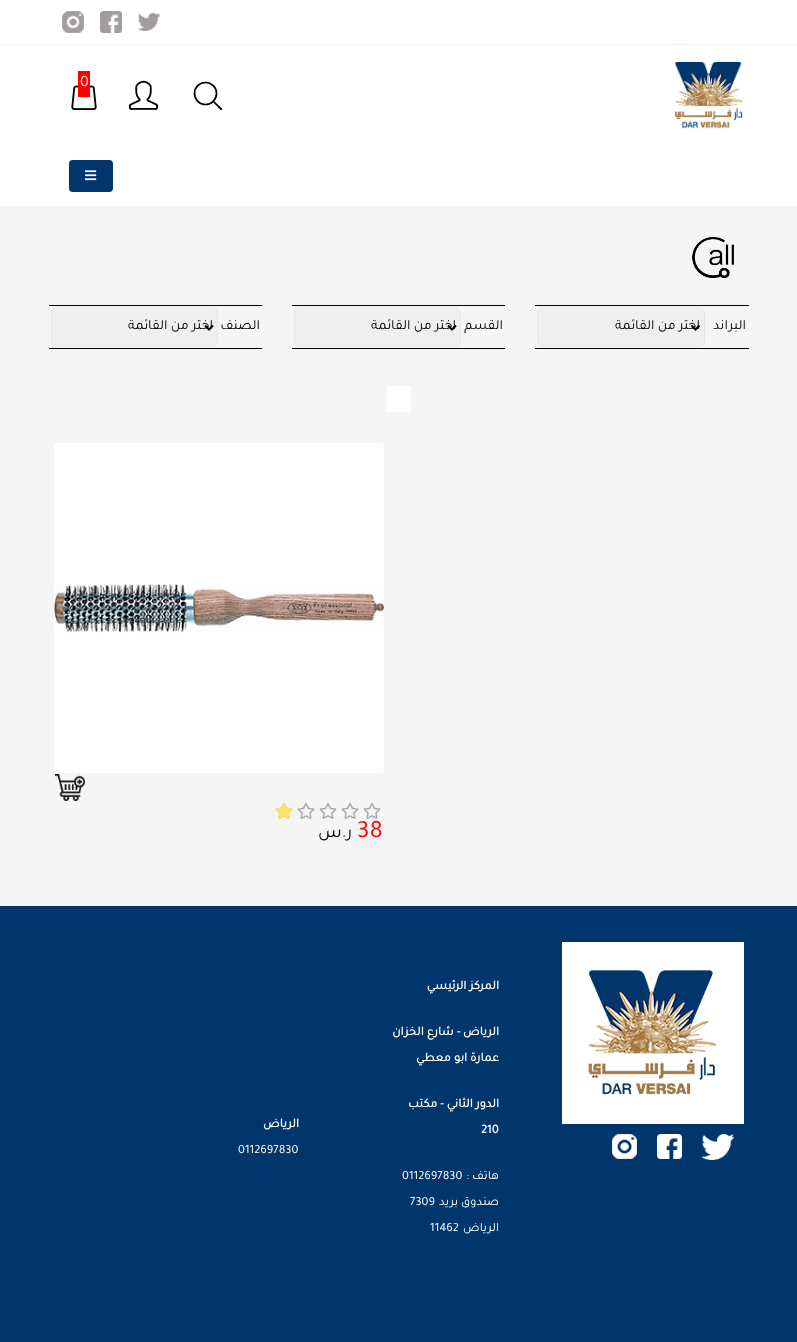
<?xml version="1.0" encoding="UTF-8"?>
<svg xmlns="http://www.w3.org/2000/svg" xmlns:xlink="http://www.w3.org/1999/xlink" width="797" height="1342">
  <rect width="100%" height="100%" fill="#f5f5f5" />
  <rect width="797" height="206" fill="#ffffff" />
  <rect y="44" width="797" height="1" fill="#f0f0f0" />
  <image x="138" y="13" width="22" height="18" xlink:href="image1.png" />
  <image x="100" y="11" width="22" height="22" xlink:href="image2.png" />
  <image x="62" y="11" width="22" height="22" xlink:href="image3.png" />
  <image x="675" y="62" width="68" height="67" xlink:href="image4.png" />
  <circle cx="205.5" cy="93.5" r="11" fill="none" stroke="#000000" stroke-width="1.7" />
  <path d="M 220.5 110 c 1 0.5 2 -0.5 1.5 -1.5 z m 1.5 -1.5 l -8.5 -8 l -1 1 l 8 8.5 z" fill="#000000" />
  <image x="129" y="80" width="29" height="30" xlink:href="image5.png" />
  <image x="71" y="85" width="26" height="25" xlink:href="image6.png" />
  <rect x="78" y="71" width="12" height="26" fill="#ff0000" />
  <rect x="69" y="160" width="44" height="32" rx="4" fill="#00366c" />
  <image x="85" y="170" width="12" height="11" xlink:href="image7.png" />
  <image x="692" y="237" width="42" height="41" xlink:href="image8.png" />
  <rect x="535" y="305" width="214" height="1" fill="#000000" />
  <rect x="535" y="348" width="214" height="1" fill="#000000" />
  <rect x="537.5" y="307.5" width="167" height="39" rx="5.5" fill="#efefef" stroke="#e5e7e9" />
  <path d="M 691.5 325.5 l 4 4 l 4 -4" fill="none" stroke="#000000" stroke-width="2" />
  <rect x="292" y="305" width="213" height="1" fill="#000000" />
  <rect x="292" y="348" width="213" height="1" fill="#000000" />
  <rect x="294.5" y="307.5" width="166" height="39" rx="5.5" fill="#efefef" stroke="#e5e7e9" />
  <path d="M 448 325.5 l 4 4 l 4 -4" fill="none" stroke="#000000" stroke-width="2" />
  <rect x="49" y="305" width="213" height="1" fill="#000000" />
  <rect x="49" y="348" width="213" height="1" fill="#000000" />
  <rect x="51.5" y="307.5" width="166" height="39" rx="5.5" fill="#efefef" stroke="#e5e7e9" />
  <path d="M 205 325.5 l 4 4 l 4 -4" fill="none" stroke="#000000" stroke-width="2" />
  <rect x="387" y="386" width="24" height="26" fill="#ffffff" />
  <rect x="54" y="443" width="330" height="330" rx="4" fill="#ffffff" />
  <image x="54" y="583" width="330" height="52" xlink:href="image9.png" />
  <image x="55" y="774" width="30" height="27" xlink:href="image10.png" />
  <image x="363" y="803" width="18" height="16" xlink:href="image11.png" />
  <image x="341" y="803" width="18" height="16" xlink:href="image11.png" />
  <image x="319" y="803" width="18" height="16" xlink:href="image11.png" />
  <image x="297" y="803" width="18" height="16" xlink:href="image11.png" />
  <image x="275" y="803" width="18" height="16" xlink:href="image11.png" />
  <image x="275" y="803" width="18" height="16" xlink:href="image12.png" />
  <rect y="906" width="797" height="436" fill="#00366c" />
  <image x="562" y="942" width="182" height="182" xlink:href="image13.png" />
  <image x="702" y="1134" width="32" height="26" xlink:href="image14.png" />
  <image x="657" y="1134" width="25" height="25" xlink:href="image15.png" />
  <image x="612" y="1134" width="25" height="25" xlink:href="image16.png" />
  <text x="80" y="86" style="font-family: Tajawal; font-size: 16px; fill: #ffffff">0</text>
  <text x="746" y="329" style="font-family: Tajawal; font-size: 14px; direction: rtl; fill: #000000">البراند</text>
  <text x="700" y="329" style="font-family: Tajawal; font-size: 14px; direction: rtl; fill: #000000">اختر من القائمة</text>
  <text x="503" y="329" style="font-family: Tajawal; font-size: 14px; direction: rtl; fill: #000000">القسم</text>
  <text x="456" y="329" style="font-family: Tajawal; font-size: 14px; direction: rtl; fill: #000000">اختر من القائمة</text>
  <text x="260" y="329" style="font-family: Tajawal; font-size: 14px; direction: rtl; fill: #000000">الصنف</text>
  <text x="213" y="329" style="font-family: Tajawal; font-size: 14px; direction: rtl; fill: #000000">اختر من القائمة</text>
  <text x="357" y="837" style="font-family: Tajawal; font-size: 25px; fill: #ff0000">38</text>
  <text x="352" y="837" style="font-family: Tajawal; font-size: 18px; direction: rtl; fill: #000000">ر.س</text>
  <text x="499" y="989" style="font-family: Tajawal; font-size: 12.5px; font-weight: bold; direction: rtl; fill: #ffffff">المركز الرئيسي</text>
  <text x="499" y="1035" style="font-family: Tajawal; font-size: 12.5px; font-weight: bold; direction: rtl; fill: #ffffff">الرياض - شارع الخزان</text>
  <text x="499" y="1061" style="font-family: Tajawal; font-size: 12.5px; font-weight: bold; direction: rtl; fill: #ffffff">عمارة ابو معطي</text>
  <text x="499" y="1107" style="font-family: Tajawal; font-size: 12.5px; font-weight: bold; direction: rtl; fill: #ffffff">الدور الثاني - مكتب</text>
  <text x="481" y="1133" style="font-family: Tajawal; font-size: 12.5px; font-weight: bold; fill: #ffffff">210</text>
  <text x="499" y="1179" style="font-family: Tajawal; font-size: 12.5px; direction: rtl; fill: #ffffff">هاتف :</text>
  <text x="402" y="1179" style="font-family: Tajawal; font-size: 12.5px; fill: #ffffff">0112697830</text>
  <text x="499" y="1205" style="font-family: Tajawal; font-size: 12.5px; direction: rtl; fill: #ffffff">صندوق بريد</text>
  <text x="410" y="1205" style="font-family: Tajawal; font-size: 12.5px; fill: #ffffff">7309</text>
  <text x="499" y="1231" style="font-family: Tajawal; font-size: 12.5px; direction: rtl; fill: #ffffff">الرياض</text>
  <text x="430" y="1231" style="font-family: Tajawal; font-size: 12.5px; fill: #ffffff">11462</text>
  <text x="299" y="1127" style="font-family: Tajawal; font-size: 12.5px; font-weight: bold; direction: rtl; fill: #ffffff">الرياض</text>
  <text x="238" y="1153" style="font-family: Tajawal; font-size: 12.5px; fill: #ffffff">0112697830</text>
</svg>
